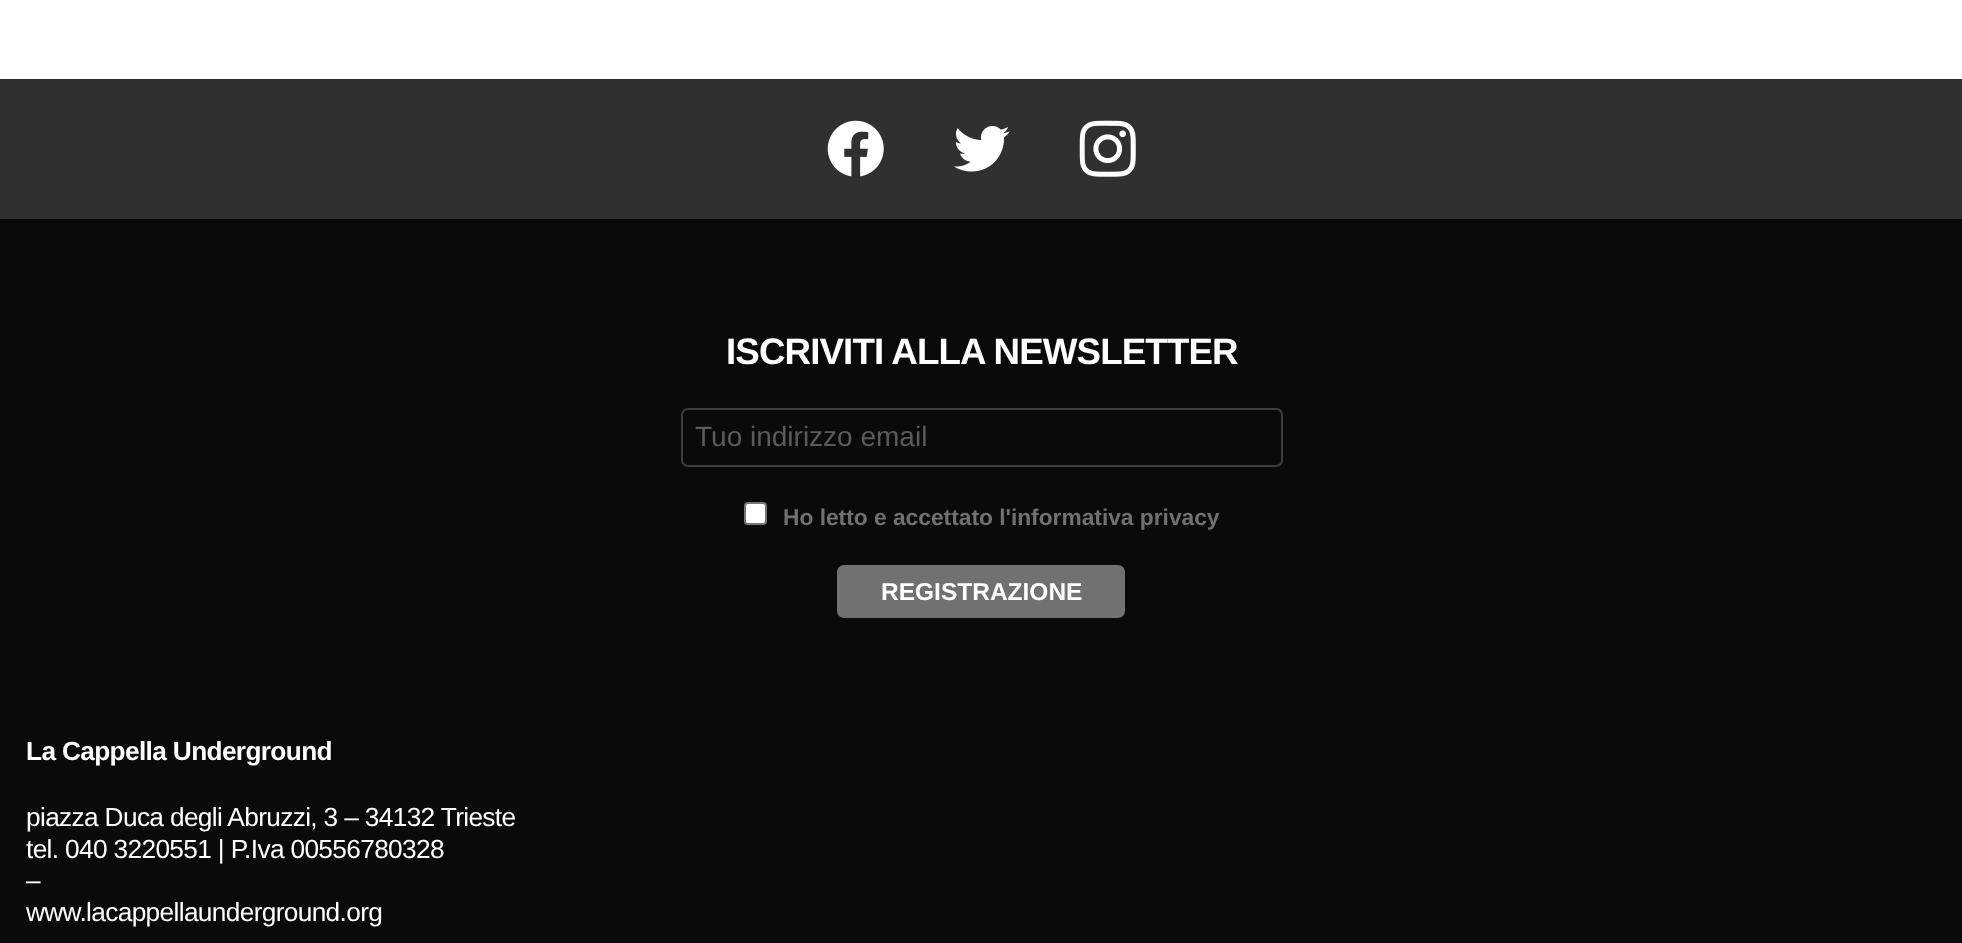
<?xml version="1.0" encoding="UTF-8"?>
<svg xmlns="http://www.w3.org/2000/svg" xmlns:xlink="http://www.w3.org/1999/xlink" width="1962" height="943">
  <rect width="100%" height="100%" fill="#ffffff" />
  <rect y="79" width="1962" height="140" fill="#303030" />
  <image x="827" y="120" width="57" height="57" xlink:href="image1.png" />
  <image x="954" y="126" width="56" height="46" xlink:href="image2.png" />
  <image x="1079" y="120" width="57" height="57" xlink:href="image3.png" />
  <rect y="219" width="1962" height="724" fill="#0a0a0a" />
  <rect x="682" y="409" width="600" height="57" rx="6" fill="none" stroke="#3d3d3d" stroke-width="2" />
  <rect x="745" y="503" width="21" height="21" rx="3" fill="#ffffff" stroke="#767676" stroke-width="2" />
  <rect x="839" y="567" width="284" height="49" rx="5" fill="#717171" stroke="#717171" stroke-width="4" />
  <text x="726" y="364" style="font-family: Liberation Sans; font-size: 36.75px; font-weight: bold; letter-spacing: -0.9px; fill: #ffffff">ISCRIVITI ALLA NEWSLETTER</text>
  <text x="695" y="446" style="font-family: Liberation Sans; font-size: 28px; fill: #5b5b5b">Tuo indirizzo email</text>
  <text x="783" y="525" style="font-family: Liberation Sans; font-size: 22.75px; font-weight: bold; fill: #717171">Ho letto e accettato l'informativa privacy</text>
  <text x="881" y="600" style="font-family: Liberation Sans; font-size: 24.5px; font-weight: bold; fill: #ffffff">REGISTRAZIONE</text>
  <text x="26" y="760" style="font-family: Liberation Sans; font-size: 26.25px; font-weight: bold; letter-spacing: -0.65px; fill: #ffffff">La Cappella Underground</text>
  <text x="26" y="826" style="font-family: Liberation Sans; font-size: 26.25px; letter-spacing: -0.65px; fill: #ffffff">piazza Duca degli Abruzzi, 3 – 34132 Trieste</text>
  <text x="26" y="858" style="font-family: Liberation Sans; font-size: 26.25px; letter-spacing: -0.65px; fill: #ffffff">tel. 040 3220551 | P.Iva 00556780328</text>
  <text x="26" y="889" style="font-family: Liberation Sans; font-size: 26.25px; letter-spacing: -0.65px; fill: #ffffff">–</text>
  <text x="26" y="921" style="font-family: Liberation Sans; font-size: 26.25px; letter-spacing: -0.65px; fill: #ffffff">www.lacappellaunderground.org</text>
</svg>
